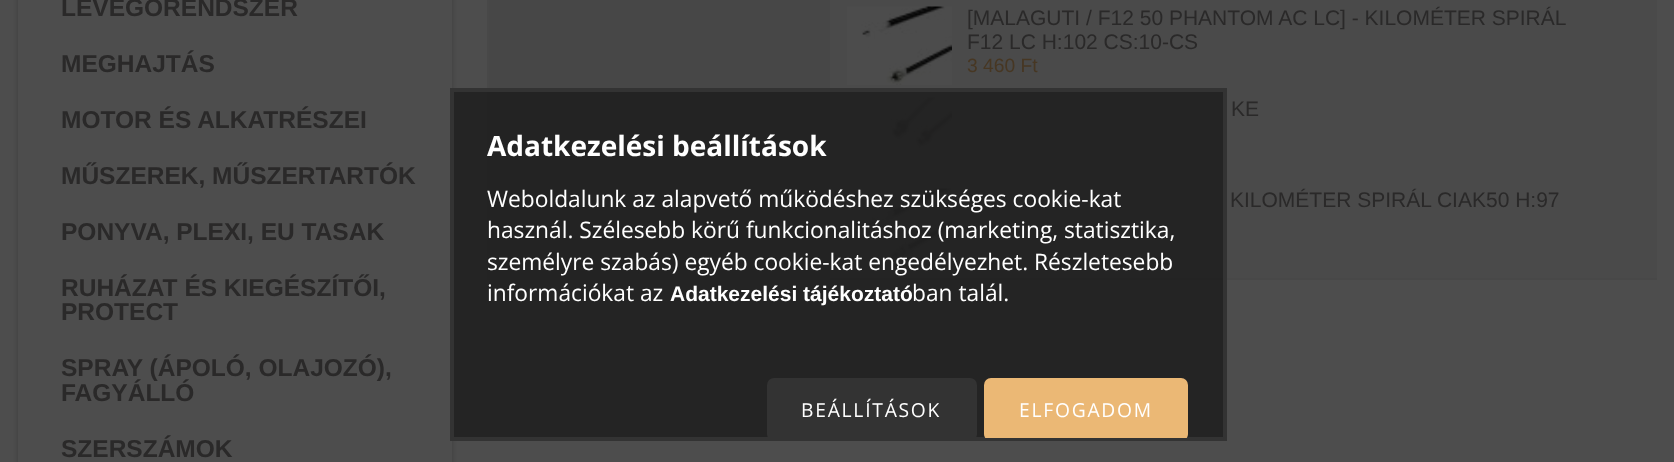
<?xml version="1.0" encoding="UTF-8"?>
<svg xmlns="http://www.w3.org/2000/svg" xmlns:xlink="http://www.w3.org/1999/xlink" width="1674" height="462">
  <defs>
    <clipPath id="clip1"><rect x="487" width="1170" height="315" /></clipPath>
    <clipPath id="clip2"><rect x="453" y="91" width="770" height="347" /></clipPath>
  </defs>
  <rect width="100%" height="100%" fill="#4d4d4d" />
  <rect x="18" y="-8" width="434" height="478" fill="#000000" fill-opacity="0.2" filter="blur(2.5px)" />
  <rect x="18" width="434" height="462" fill="#4d4d4d" />
  <g clip-path="url(#clip1)">
    <rect x="488" y="-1" width="1172" height="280" fill="none" stroke="#484848" stroke-width="2" />
  </g>
  <rect x="489" width="341" height="278" fill="#474747" />
  <rect x="830" width="827" height="278" fill="#4a4a4a" />
  <image x="847" y="6" width="105" height="79" xlink:href="image1.png" />
  <image x="847" y="97" width="105" height="79" xlink:href="image2.png" />
  <image x="847" y="188" width="105" height="79" xlink:href="image3.png" />
  <rect x="452" y="90" width="773" height="349" fill="#222222" fill-opacity="0.95" stroke="#333333" stroke-width="4" />
  <g clip-path="url(#clip2)">
    <rect x="767" y="378" width="210" height="63" rx="7" fill="#333333" />
    <rect x="984" y="378" width="204" height="63" rx="7" fill="#ebb875" />
  </g>
  <text x="61" y="16" style="font-family: Liberation Sans; font-size: 24.5px; font-weight: bold; fill: #2a2929">LEVEGŐRENDSZER</text>
  <text x="61" y="72" style="font-family: Liberation Sans; font-size: 24.5px; font-weight: bold; fill: #2a2929">MEGHAJTÁS</text>
  <text x="61" y="128" style="font-family: Liberation Sans; font-size: 24.5px; font-weight: bold; fill: #2a2929">MOTOR ÉS ALKATRÉSZEI</text>
  <text x="61" y="184" style="font-family: Liberation Sans; font-size: 24.5px; font-weight: bold; fill: #2a2929">MŰSZEREK, MŰSZERTARTÓK</text>
  <text x="61" y="240" style="font-family: Liberation Sans; font-size: 24.5px; font-weight: bold; fill: #2a2929">PONYVA, PLEXI, EU TASAK</text>
  <text x="61" y="296" style="font-family: Liberation Sans; font-size: 24.5px; font-weight: bold; fill: #2a2929">RUHÁZAT ÉS KIEGÉSZÍTŐI,</text>
  <text x="61" y="320" style="font-family: Liberation Sans; font-size: 24.5px; font-weight: bold; fill: #2a2929">PROTECT</text>
  <text x="61" y="376" style="font-family: Liberation Sans; font-size: 24.5px; font-weight: bold; fill: #2a2929">SPRAY (ÁPOLÓ, OLAJOZÓ),</text>
  <text x="61" y="401" style="font-family: Liberation Sans; font-size: 24.5px; font-weight: bold; fill: #2a2929">FAGYÁLLÓ</text>
  <text x="61" y="457" style="font-family: Liberation Sans; font-size: 24.5px; font-weight: bold; fill: #2a2929">SZERSZÁMOK</text>
  <text x="967" y="25" style="font-family: Liberation Sans; font-size: 21px; fill: #2a2929">[MALAGUTI / F12 50 PHANTOM AC LC] - KILOMÉTER SPIRÁL</text>
  <text x="967" y="49" style="font-family: Liberation Sans; font-size: 21px; fill: #2a2929">F12 LC H:102 CS:10-CS</text>
  <text x="967" y="72" style="font-family: Liberation Sans; font-size: 19.25px; fill: #473723">3 460 Ft</text>
  <text x="1231" y="116" style="font-family: Liberation Sans; font-size: 21px; fill: #2a2929">KE</text>
  <text x="1230" y="207" style="font-family: Liberation Sans; font-size: 21px; fill: #2a2929">KILOMÉTER SPIRÁL CIAK50 H:97</text>
  <text x="487" y="156" style="font-family: Open Sans; font-size: 28px; font-weight: bold; fill: #ffffff">Adatkezelési beállítások</text>
  <text x="487" y="207" style="font-family: Open Sans; font-size: 22.75px; fill: #ffffff">Weboldalunk az alapvető működéshez szükséges cookie-kat</text>
  <text x="487" y="238" style="font-family: Open Sans; font-size: 22.75px; fill: #ffffff">használ. Szélesebb körű funkcionalitáshoz (marketing, statisztika,</text>
  <text x="487" y="270" style="font-family: Open Sans; font-size: 22.75px; fill: #ffffff">személyre szabás) egyéb cookie-kat engedélyezhet. Részletesebb</text>
  <text x="487" y="301" style="font-family: Open Sans; font-size: 22.75px; fill: #ffffff">információkat az</text>
  <text x="670" y="301" style="font-family: Liberation Sans; font-size: 21px; font-weight: bold; fill: #ffffff">Adatkezelési tájékoztató</text>
  <text x="912" y="301" style="font-family: Open Sans; font-size: 22.75px; fill: #ffffff">ban talál.</text>
  <text x="801" y="417" style="font-family: Open Sans; font-size: 19.25px; letter-spacing: 1.75px; fill: #ffffff">BEÁLLÍTÁSOK</text>
  <text x="1019" y="417" style="font-family: Open Sans; font-size: 19.25px; letter-spacing: 1.75px; fill: #ffffff">ELFOGADOM</text>
</svg>
